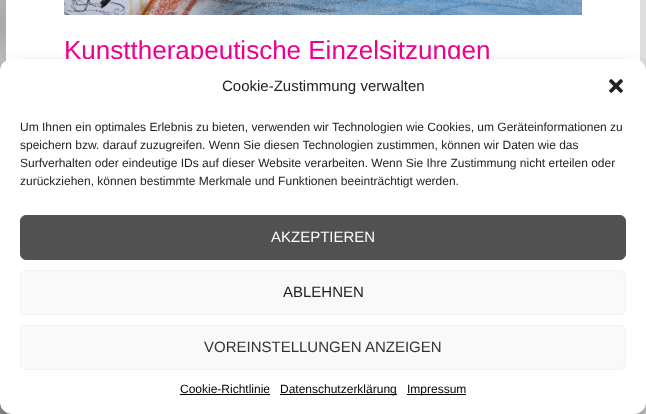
<?xml version="1.0" encoding="UTF-8"?>
<svg xmlns="http://www.w3.org/2000/svg" xmlns:xlink="http://www.w3.org/1999/xlink" width="646" height="414">
  <rect width="100%" height="100%" fill="#ffffff" />
  <image x="0" y="0" width="646" height="414" xlink:href="image1.png" />
  <rect x="6" width="634" height="61" fill="#ffffff" />
  <image x="64" y="0" width="518" height="15" xlink:href="image2.png" />
  <rect y="65" width="646" height="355" rx="12" fill="#000000" fill-opacity="0.23" filter="blur(3px)" />
  <rect y="69" width="646" height="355" rx="12" fill="#000000" fill-opacity="0.19" filter="blur(10px)" />
  <text x="64" y="59" style="font-family: Liberation Sans; font-size: 26px; fill: #ec008c">Kunsttherapeutische Einzelsitzungen</text>
  <rect y="59" width="646" height="355" rx="12" fill="#ffffff" />
  <text x="222" y="91" style="font-family: Liberation Sans; font-size: 15px; fill: #222222">Cookie-Zustimmung verwalten</text>
  <image x="609" y="79" width="14" height="14" xlink:href="image3.png" />
  <text x="20" y="131" style="font-family: Liberation Sans; font-size: 12px; fill: #222222">Um Ihnen ein optimales Erlebnis zu bieten, verwenden wir Technologien wie Cookies, um Geräteinformationen zu</text>
  <text x="20" y="149" style="font-family: Liberation Sans; font-size: 12px; fill: #222222">speichern bzw. darauf zuzugreifen. Wenn Sie diesen Technologien zustimmen, können wir Daten wie das</text>
  <text x="20" y="167" style="font-family: Liberation Sans; font-size: 12px; fill: #222222">Surfverhalten oder eindeutige IDs auf dieser Website verarbeiten. Wenn Sie Ihre Zustimmung nicht erteilen oder</text>
  <text x="20" y="185" style="font-family: Liberation Sans; font-size: 12px; fill: #222222">zurückziehen, können bestimmte Merkmale und Funktionen beeinträchtigt werden.</text>
  <rect x="20.5" y="215.5" width="605" height="44" rx="5.5" fill="#515151" stroke="#515151" />
  <text x="271" y="242" style="font-family: Liberation Sans; font-size: 15px; fill: #ffffff">AKZEPTIEREN</text>
  <rect x="20.5" y="270.5" width="605" height="44" rx="5.5" fill="#f9f9f9" stroke="#f2f2f2" />
  <text x="283" y="297" style="font-family: Liberation Sans; font-size: 15px; fill: #222222">ABLEHNEN</text>
  <rect x="20.5" y="325.5" width="605" height="44" rx="5.5" fill="#f9f9f9" stroke="#f2f2f2" />
  <text x="204" y="352" style="font-family: Liberation Sans; font-size: 15px; fill: #333333">VOREINSTELLUNGEN ANZEIGEN</text>
  <text x="180" y="393" style="font-family: Liberation Sans; font-size: 12px; fill: #000000">Cookie-Richtlinie</text>
  <rect x="180" y="394" width="90" height="1" fill="#000000" />
  <rect x="280" y="394" width="117" height="1" fill="#000000" />
  <text x="280" y="393" style="font-family: Liberation Sans; font-size: 12px; fill: #000000">Datenschutzerklärung</text>
  <rect x="407" y="394" width="59" height="1" fill="#000000" />
  <text x="407" y="393" style="font-family: Liberation Sans; font-size: 12px; fill: #000000">Impressum</text>
</svg>
